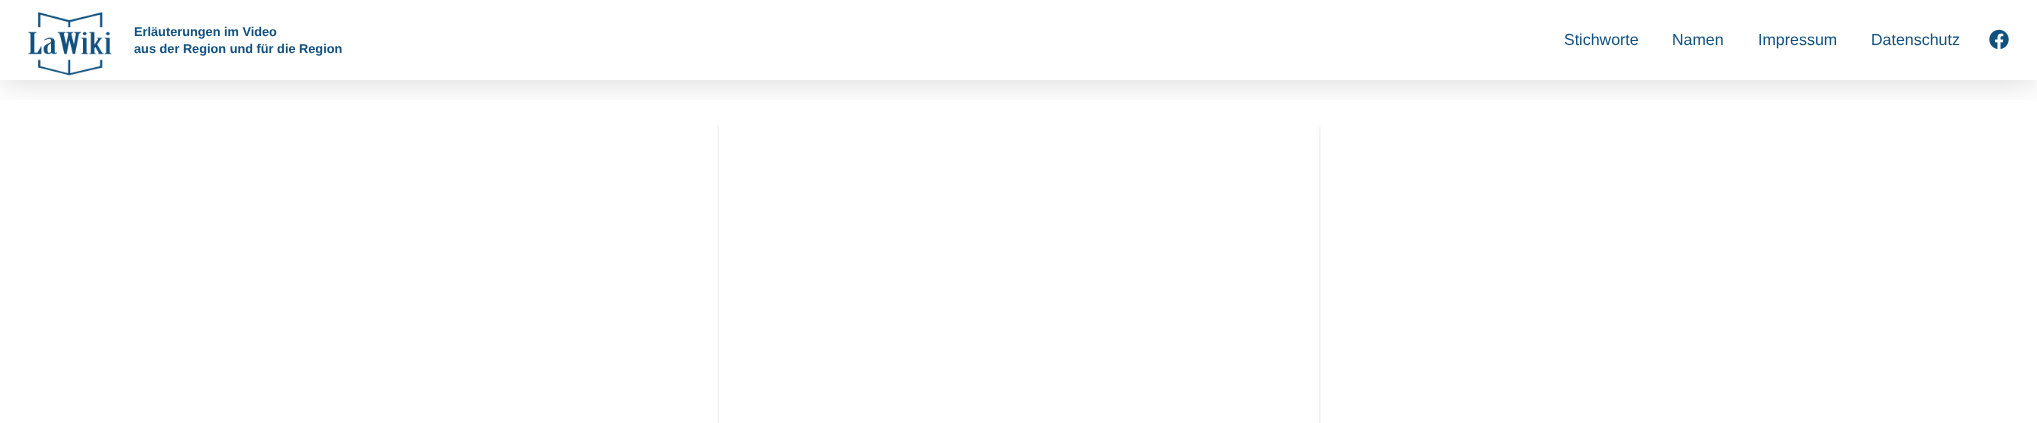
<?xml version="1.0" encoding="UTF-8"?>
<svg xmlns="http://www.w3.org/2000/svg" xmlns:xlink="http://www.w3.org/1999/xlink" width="2037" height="423">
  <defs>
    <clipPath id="clip1"><rect x="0" y="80" width="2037" height="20" /></clipPath>
    <clipPath id="clip2"><rect x="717" y="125" width="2" height="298" /></clipPath>
    <clipPath id="clip3"><rect x="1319" y="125" width="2" height="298" /></clipPath>
  </defs>
  <rect width="100%" height="100%" fill="#ffffff" />
  <g clip-path="url(#clip1)">
    <rect y="2" width="2037" height="80" fill="#000000" fill-opacity="0.15" filter="blur(16px)" />
  </g>
  <image x="27" y="12" width="85" height="64" xlink:href="image1.png" />
  <image x="1989" y="29" width="20" height="20" xlink:href="image2.png" />
  <g clip-path="url(#clip2)">
    <rect x="719" y="126" width="592" height="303" fill="#000000" fill-opacity="0.13" filter="blur(2px)" />
  </g>
  <g clip-path="url(#clip3)">
    <rect x="727" y="126" width="592" height="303" fill="#000000" fill-opacity="0.13" filter="blur(2px)" />
  </g>
  <text x="134" y="36" style="font-family: Liberation Sans; font-size: 12.75px; font-weight: bold; fill: #10507f">Erläuterungen im Video</text>
  <text x="134" y="53" style="font-family: Liberation Sans; font-size: 12.75px; font-weight: bold; fill: #10507f">aus der Region und für die Region</text>
  <text x="1564" y="45" style="font-family: Liberation Sans; font-size: 16px; fill: #10507f">Stichworte</text>
  <text x="1672" y="45" style="font-family: Liberation Sans; font-size: 16px; fill: #10507f">Namen</text>
  <text x="1758" y="45" style="font-family: Liberation Sans; font-size: 16px; fill: #10507f">Impressum</text>
  <text x="1871" y="45" style="font-family: Liberation Sans; font-size: 16px; fill: #10507f">Datenschutz</text>
</svg>
